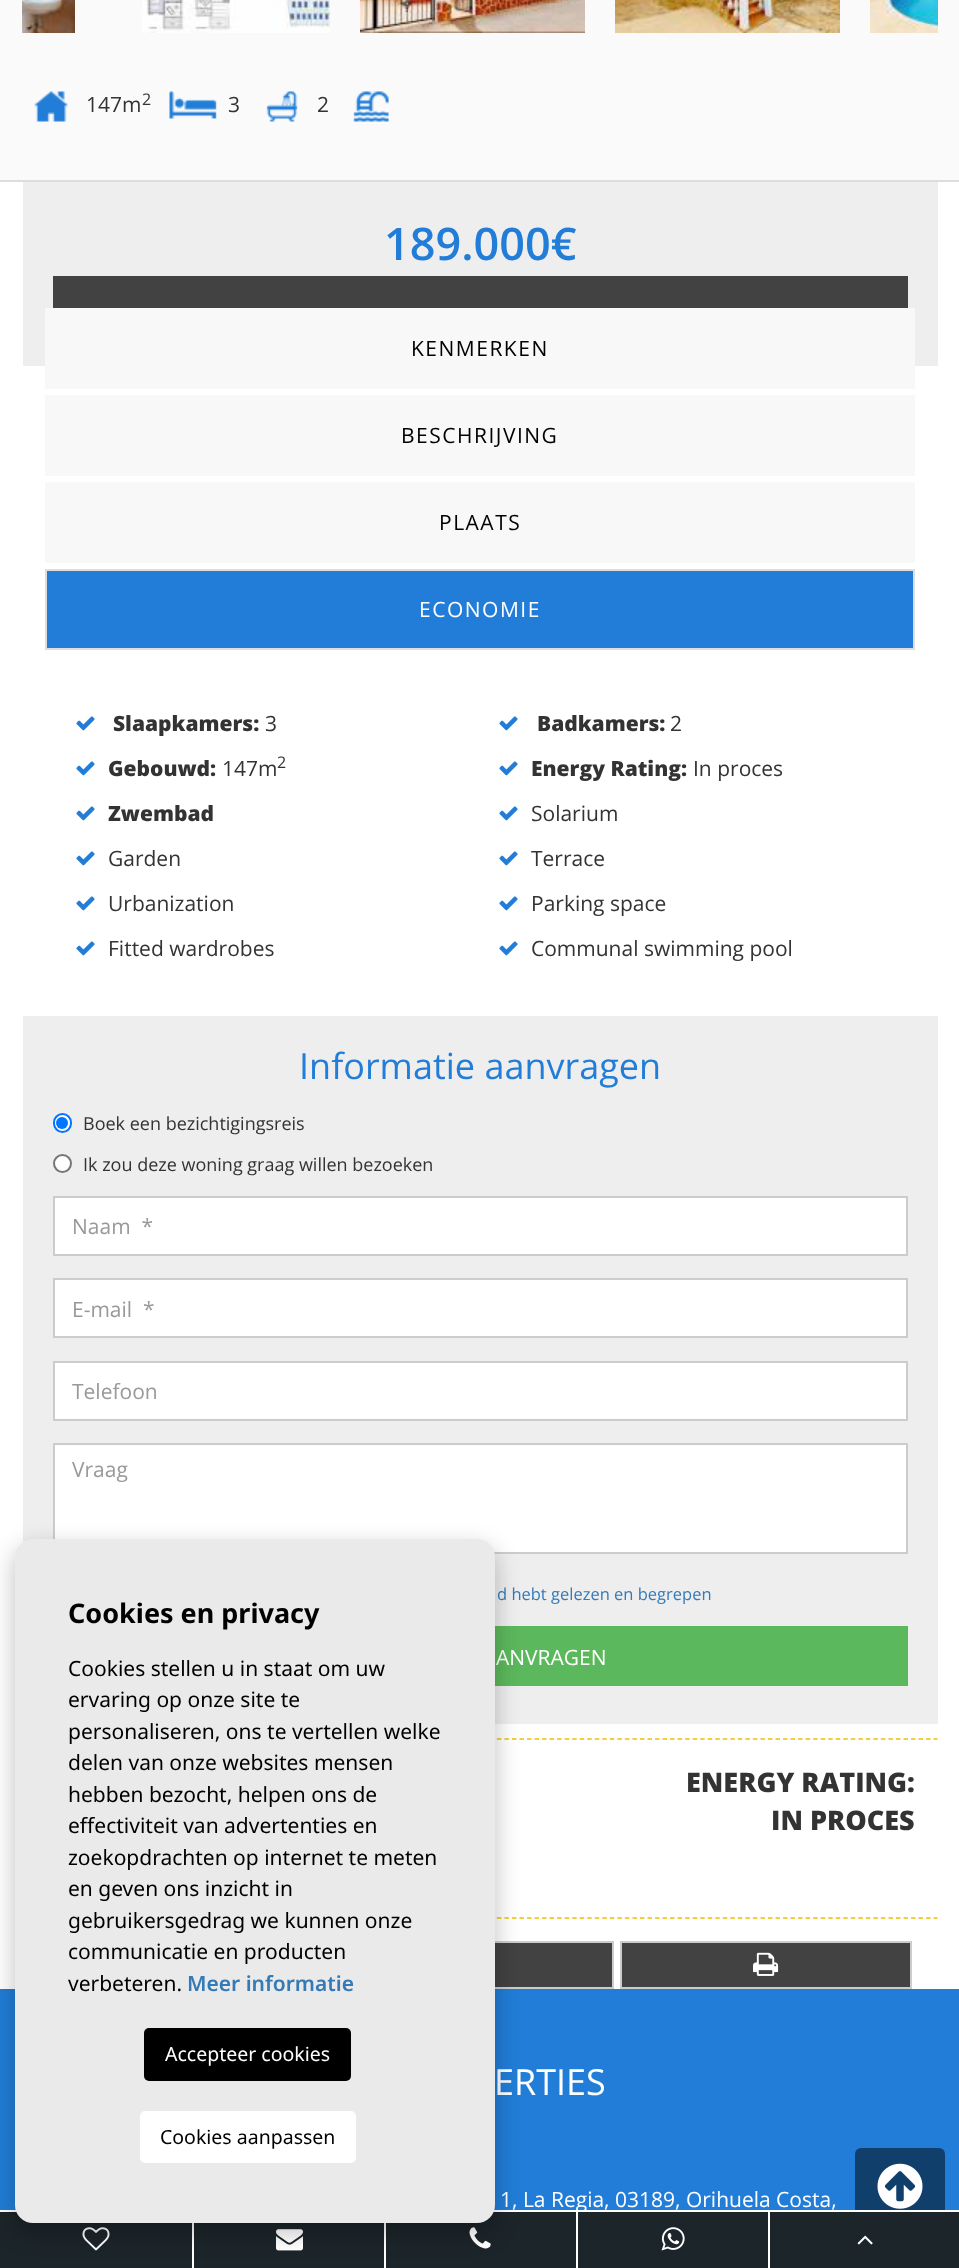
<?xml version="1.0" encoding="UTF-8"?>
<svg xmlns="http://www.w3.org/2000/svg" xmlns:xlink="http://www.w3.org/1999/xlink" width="959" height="2268">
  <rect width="100%" height="100%" fill="#fafafa" />
  <image x="22" y="0" width="53" height="33" xlink:href="image1.png" />
  <image x="142" y="0" width="188" height="33" xlink:href="image2.png" />
  <image x="360" y="0" width="225" height="33" xlink:href="image3.png" />
  <image x="615" y="0" width="225" height="33" xlink:href="image4.png" />
  <image x="870" y="0" width="68" height="33" xlink:href="image5.png" />
  <image x="34" y="91" width="34" height="31" xlink:href="image6.png" />
  <image x="169" y="91" width="48" height="28" xlink:href="image7.png" />
  <image x="266" y="91" width="32" height="31" xlink:href="image8.png" />
  <image x="353" y="91" width="36" height="31" xlink:href="image9.png" />
  <rect y="182" width="959" height="1807" fill="#ffffff" />
  <rect y="180" width="959" height="2" fill="#dddddd" />
  <rect x="23" y="182" width="915" height="184" fill="#eeeeee" />
  <rect x="53" y="276" width="855" height="32" fill="#424242" />
  <rect x="45" y="308" width="870" height="81" fill="#f8f8f8" />
  <rect x="45" y="395" width="870" height="81" fill="#f8f8f8" />
  <rect x="45" y="482" width="870" height="81" fill="#f8f8f8" />
  <rect x="46" y="570" width="868" height="79" fill="#217dd7" stroke="#dddddd" stroke-width="2" />
  <image x="76" y="716" width="19" height="15" xlink:href="image10.png" />
  <image x="499" y="716" width="19" height="15" xlink:href="image10.png" />
  <image x="76" y="761" width="19" height="15" xlink:href="image10.png" />
  <image x="499" y="761" width="19" height="15" xlink:href="image10.png" />
  <image x="76" y="806" width="19" height="15" xlink:href="image10.png" />
  <image x="499" y="806" width="19" height="15" xlink:href="image10.png" />
  <image x="76" y="851" width="19" height="15" xlink:href="image10.png" />
  <image x="499" y="851" width="19" height="15" xlink:href="image10.png" />
  <image x="76" y="896" width="19" height="15" xlink:href="image10.png" />
  <image x="499" y="896" width="19" height="15" xlink:href="image10.png" />
  <image x="76" y="941" width="19" height="15" xlink:href="image10.png" />
  <image x="499" y="941" width="19" height="15" xlink:href="image10.png" />
  <rect x="23" y="1016" width="915" height="708" fill="#eeeeee" />
  <rect x="54" y="1114" width="17" height="18" rx="8.5" fill="#ffffff" stroke="#0075ff" stroke-width="2" />
  <circle cx="62" cy="1123" r="6" fill="#0075ff" />
  <circle cx="62.5" cy="1163.5" r="8.5" fill="#ffffff" stroke="#767676" stroke-width="2" />
  <rect x="54" y="1197" width="853" height="58" fill="#ffffff" stroke="#cccccc" stroke-width="2" />
  <rect x="54" y="1279" width="853" height="58" fill="#ffffff" stroke="#cccccc" stroke-width="2" />
  <rect x="54" y="1362" width="853" height="58" fill="#ffffff" stroke="#cccccc" stroke-width="2" />
  <rect x="54" y="1444" width="853" height="109" fill="#ffffff" stroke="#cccccc" stroke-width="2" />
  <rect x="495" y="1626" width="413" height="60" fill="#5cb85c" />
  <path d="M 22.5 1739 h 915" fill="none" stroke="#f2bf00" stroke-width="1.5" stroke-dasharray="4.5 3.03" />
  <path d="M 22.5 1918 h 915" fill="none" stroke="#f2bf00" stroke-width="1.5" stroke-dasharray="4.5 3.03" />
  <rect x="495" y="1943" width="117" height="44" fill="#424242" />
  <rect x="322" y="1942" width="291" height="46" fill="none" stroke="#cccccc" stroke-width="2" />
  <rect x="621" y="1942" width="290" height="46" fill="#424242" stroke="#cccccc" stroke-width="2" />
  <image x="753" y="1952" width="26" height="24" xlink:href="image11.png" />
  <rect y="1989" width="959" height="221" fill="#217dd7" />
  <rect x="855" y="2148" width="90" height="75" rx="6" fill="#113f6c" />
  <image x="877" y="2163" width="46" height="46" xlink:href="image12.png" />
  <rect y="2210" width="959" height="2" fill="#ffffff" />
  <text x="86" y="112" style="font-family: Open Sans; font-size: 21px; fill: #333333">147m</text>
  <text x="142" y="105" style="font-family: Open Sans; font-size: 16px; fill: #333333">2</text>
  <text x="228" y="112" style="font-family: Open Sans; font-size: 21px; fill: #333333">3</text>
  <text x="317" y="112" style="font-family: Open Sans; font-size: 21px; fill: #333333">2</text>
  <text x="384" y="260" style="font-family: Open Sans; font-size: 45px; font-weight: 600; fill: #217dd7">189.000€</text>
  <text x="411" y="356" style="font-family: Open Sans; font-size: 21px; letter-spacing: 1.5px; fill: #000000">KENMERKEN</text>
  <text x="401" y="443" style="font-family: Open Sans; font-size: 21px; letter-spacing: 1.5px; fill: #000000">BESCHRIJVING</text>
  <text x="439" y="530" style="font-family: Open Sans; font-size: 21px; letter-spacing: 1.5px; fill: #000000">PLAATS</text>
  <text x="419" y="617" style="font-family: Open Sans; font-size: 21px; letter-spacing: 1.5px; fill: #ffffff">ECONOMIE</text>
  <text x="113" y="731" style="font-family: Open Sans; font-size: 21px; font-weight: 800; fill: #333333">Slaapkamers:</text>
  <text x="265" y="731" style="font-family: Open Sans; font-size: 21px; fill: #333333">3</text>
  <text x="537" y="731" style="font-family: Open Sans; font-size: 21px; font-weight: 800; fill: #333333">Badkamers:</text>
  <text x="670" y="731" style="font-family: Open Sans; font-size: 21px; fill: #333333">2</text>
  <text x="108" y="776" style="font-family: Open Sans; font-size: 21px; font-weight: 800; fill: #333333">Gebouwd:</text>
  <text x="222" y="776" style="font-family: Open Sans; font-size: 21px; fill: #333333">147m</text>
  <text x="277" y="768" style="font-family: Open Sans; font-size: 16px; fill: #333333">2</text>
  <text x="531" y="776" style="font-family: Open Sans; font-size: 21px; font-weight: 800; fill: #333333">Energy Rating:</text>
  <text x="693" y="776" style="font-family: Open Sans; font-size: 21px; fill: #333333">In proces</text>
  <text x="108" y="821" style="font-family: Open Sans; font-size: 21px; font-weight: 800; fill: #333333">Zwembad</text>
  <text x="531" y="821" style="font-family: Open Sans; font-size: 21px; fill: #333333">Solarium</text>
  <text x="108" y="866" style="font-family: Open Sans; font-size: 21px; fill: #333333">Garden</text>
  <text x="531" y="866" style="font-family: Open Sans; font-size: 21px; fill: #333333">Terrace</text>
  <text x="108" y="911" style="font-family: Open Sans; font-size: 21px; fill: #333333">Urbanization</text>
  <text x="531" y="911" style="font-family: Open Sans; font-size: 21px; fill: #333333">Parking space</text>
  <text x="108" y="956" style="font-family: Open Sans; font-size: 21px; fill: #333333">Fitted wardrobes</text>
  <text x="531" y="956" style="font-family: Open Sans; font-size: 21px; fill: #333333">Communal swimming pool</text>
  <text x="299" y="1079" style="font-family: Open Sans; font-size: 36px; fill: #217dd7">Informatie aanvragen</text>
  <text x="83" y="1130" style="font-family: Open Sans; font-size: 18px; fill: #333333">Boek een bezichtigingsreis</text>
  <text x="83" y="1171" style="font-family: Open Sans; font-size: 18px; fill: #333333">Ik zou deze woning graag willen bezoeken</text>
  <text x="72" y="1234" style="font-family: Open Sans; font-size: 21px; fill: #999999" xml:space="preserve">Naam  *</text>
  <text x="72" y="1317" style="font-family: Open Sans; font-size: 21px; fill: #999999" xml:space="preserve">E-mail  *</text>
  <text x="72" y="1399" style="font-family: Open Sans; font-size: 21px; fill: #999999">Telefoon</text>
  <text x="72" y="1477" style="font-family: Open Sans; font-size: 21px; fill: #999999">Vraag</text>
  <text x="497" y="1600" style="font-family: Open Sans; font-size: 16.5px; fill: #337ab7">d hebt gelezen en begrepen</text>
  <text x="496" y="1665" style="font-family: Open Sans; font-size: 21px; fill: #ffffff">ANVRAGEN</text>
  <text x="686" y="1792" style="font-family: Open Sans; font-size: 27px; font-weight: 800; fill: #333333">ENERGY RATING:</text>
  <text x="771" y="1830" style="font-family: Open Sans; font-size: 27px; font-weight: 800; fill: #333333">IN PROCES</text>
  <text x="494" y="2095" style="font-family: Open Sans; font-size: 36px; fill: #ffffff">ERTIES</text>
  <text x="500" y="2207" style="font-family: Open Sans; font-size: 21px; fill: #ffffff">1, La Regia, 03189, Orihuela Costa,</text>
  <rect y="2212" width="959" height="56" fill="#1c252a" />
  <image x="82" y="2227" width="28" height="24" xlink:href="image13.png" />
  <rect x="192" y="2223" width="2" height="45" fill="#ffffff" />
  <image x="276" y="2229" width="27" height="22" xlink:href="image14.png" />
  <rect x="384" y="2223" width="2" height="45" fill="#ffffff" />
  <image x="469" y="2227" width="22" height="22" xlink:href="image15.png" />
  <rect x="15" y="1548" width="480" height="684" rx="18" fill="#000000" fill-opacity="0.25" filter="blur(12px)" />
  <rect x="15" y="1539" width="480" height="684" rx="18" fill="#eaeaea" />
  <rect x="140" y="2111" width="216" height="52" rx="5" fill="#ffffff" />
  <text x="160" y="2144" style="font-family: Noto Sans; font-size: 19.5px; fill: #000000">Cookies aanpassen</text>
  <rect x="144" y="2028" width="207" height="53" rx="5" fill="#000000" />
  <text x="165" y="2061" style="font-family: Noto Sans; font-size: 19.5px; fill: #ffffff">Accepteer cookies</text>
  <text x="187" y="1991" style="font-family: Noto Sans; font-size: 21px; font-weight: 600; fill: #337ab7">Meer informatie</text>
  <text x="68" y="1991" style="font-family: Noto Sans; font-size: 21px; fill: #000000">verbeteren.</text>
  <text x="68" y="1959" style="font-family: Noto Sans; font-size: 21px; fill: #000000">communicatie en producten</text>
  <text x="68" y="1928" style="font-family: Noto Sans; font-size: 21px; fill: #000000">gebruikersgedrag we kunnen onze</text>
  <text x="68" y="1896" style="font-family: Noto Sans; font-size: 21px; fill: #000000">en geven ons inzicht in</text>
  <text x="68" y="1865" style="font-family: Noto Sans; font-size: 21px; fill: #000000">zoekopdrachten op internet te meten</text>
  <text x="68" y="1833" style="font-family: Noto Sans; font-size: 21px; fill: #000000">effectiviteit van advertenties en</text>
  <text x="68" y="1802" style="font-family: Noto Sans; font-size: 21px; fill: #000000">hebben bezocht, helpen ons de</text>
  <text x="68" y="1770" style="font-family: Noto Sans; font-size: 21px; fill: #000000">delen van onze websites mensen</text>
  <text x="68" y="1739" style="font-family: Noto Sans; font-size: 21px; fill: #000000">personaliseren, ons te vertellen welke</text>
  <text x="68" y="1707" style="font-family: Noto Sans; font-size: 21px; fill: #000000">ervaring op onze site te</text>
  <text x="68" y="1676" style="font-family: Noto Sans; font-size: 21px; fill: #000000">Cookies stellen u in staat om uw</text>
  <text x="68" y="1623" style="font-family: Noto Sans; font-size: 27px; font-weight: bold; fill: #000000">Cookies en privacy</text>
  <rect x="576" y="2211" width="2" height="57" fill="#ffffff" />
  <image x="661" y="2227" width="24" height="24" xlink:href="image16.png" />
  <rect x="768" y="2211" width="2" height="57" fill="#ffffff" />
  <image x="857" y="2235" width="16" height="10" xlink:href="image17.png" />
</svg>
